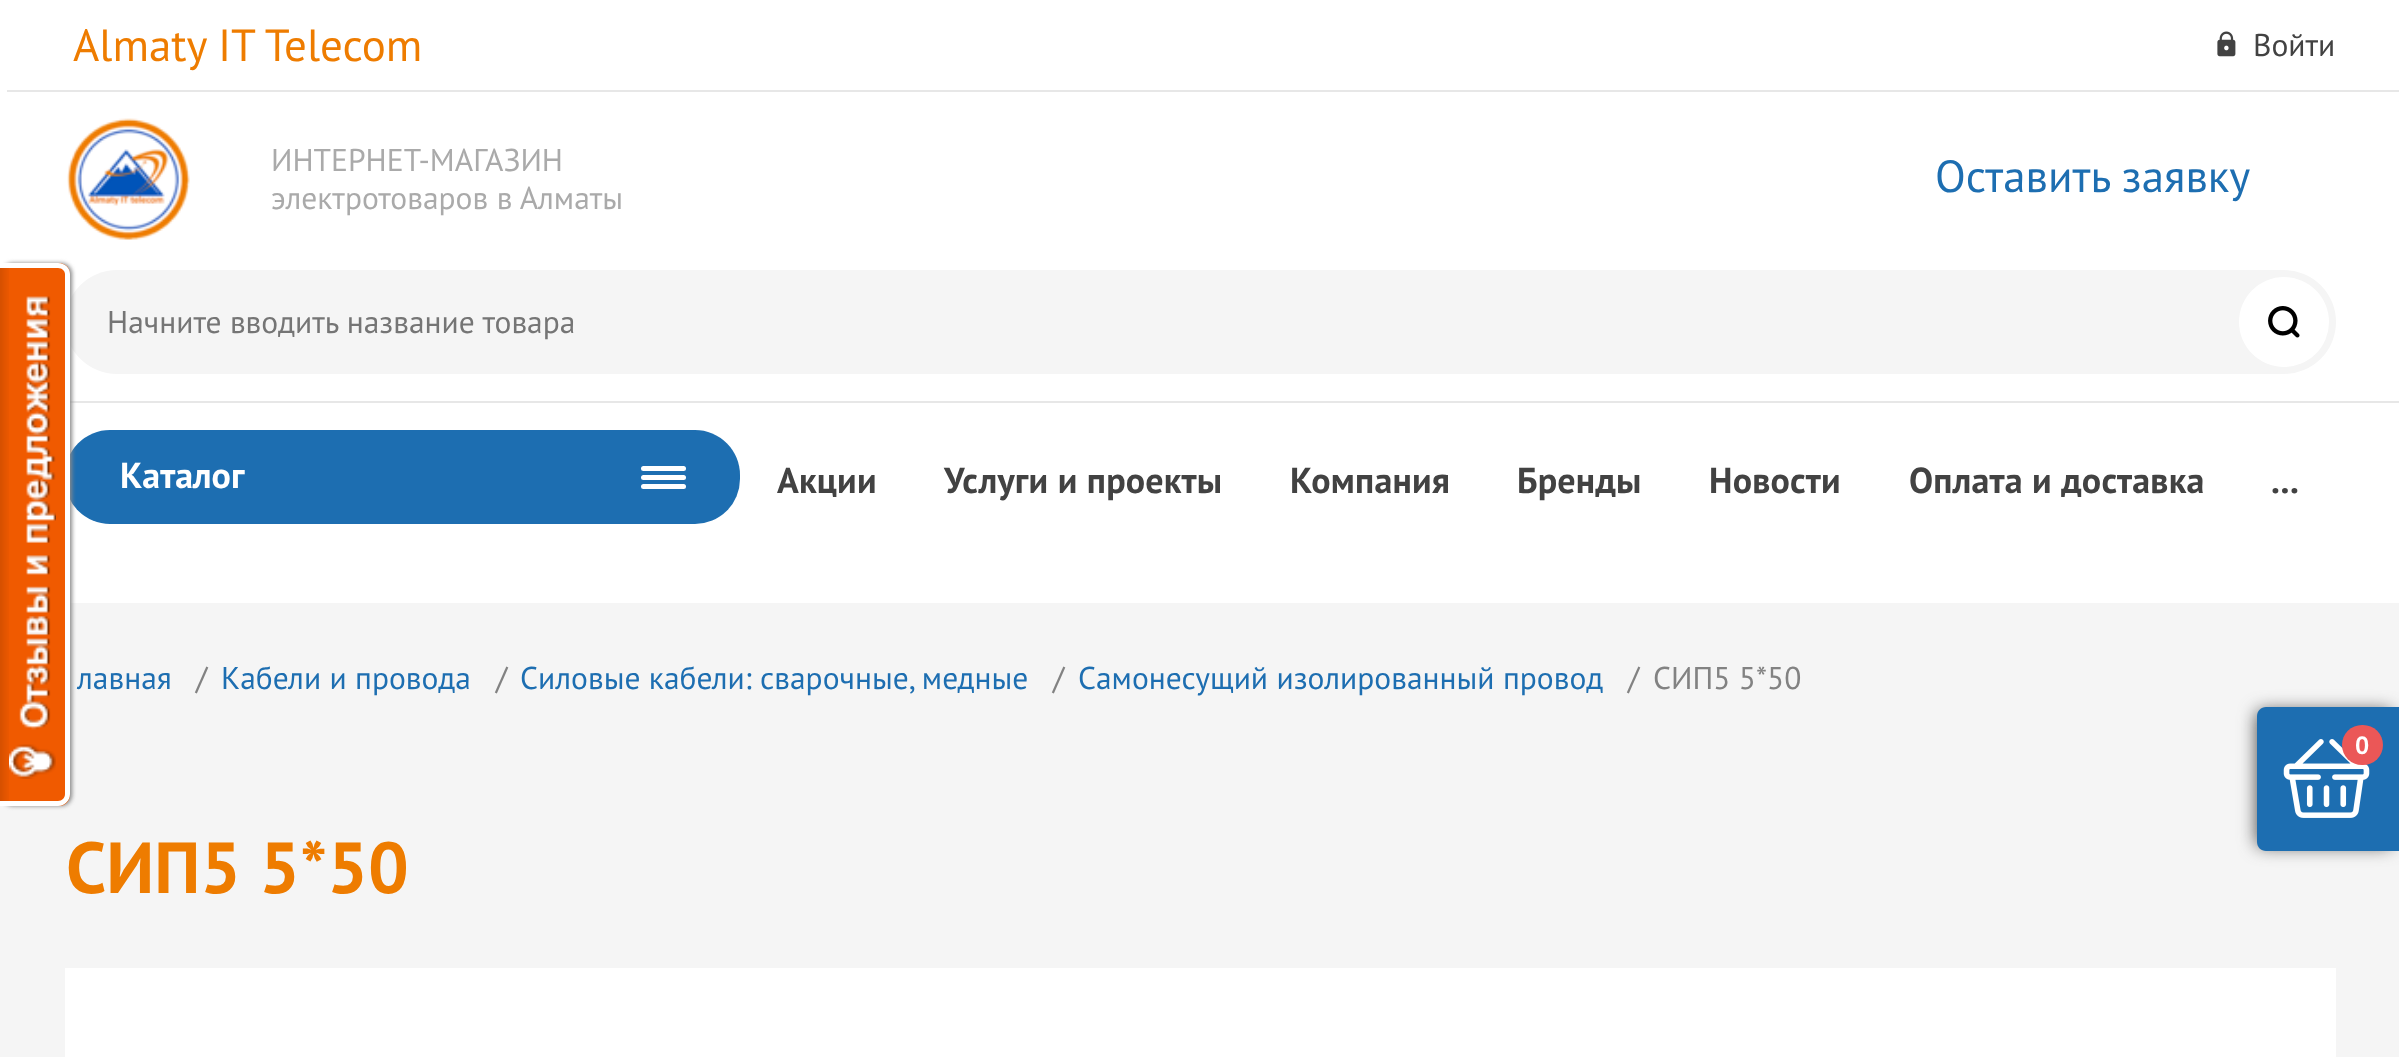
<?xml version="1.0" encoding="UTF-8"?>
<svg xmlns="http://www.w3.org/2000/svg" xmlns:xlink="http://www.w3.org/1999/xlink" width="2399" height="1057">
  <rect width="100%" height="100%" fill="#f5f5f5" />
  <rect width="2399" height="603" fill="#ffffff" />
  <rect x="70" y="401" width="2329" height="2" fill="#e7e7e7" />
  <rect x="65" y="270" width="2271" height="104" rx="52" fill="#f5f5f5" />
  <rect x="65" y="430" width="675" height="94" rx="45" fill="#1d6eb1" />
  <rect x="2" y="263" width="70" height="543" rx="11" fill="#888888" filter="blur(2px)" />
  <path d="M 0 263 h 59 c 6 0 11 5 11 11 v 521 c 0 6 -5 11 -11 11 h -59 z" fill="#f05a00" />
  <image x="0" y="268" width="9" height="533" xlink:href="image1.png" />
  <path d="M 0 263 h 58 c 7 0 12 5 12 11 v 520 c 0 6 -5 12 -12 12 h -58 z m 0 5 h 58 c 4 0 7 3 7 6 v 520 c 0 4 -3 7 -7 7 h -58 z" fill="#ffffff" fill-rule="evenodd" />
  <image x="9" y="296" width="47" height="483" xlink:href="image2.png" />
  <rect x="7" y="90" width="2392" height="2" fill="#e7e7e7" />
  <image x="2217" y="31" width="19" height="26" xlink:href="image3.png" />
  <image x="67" y="118" width="123" height="122" xlink:href="image4.png" />
  <circle cx="2284" cy="322" r="45" fill="#ffffff" />
  <image x="2268" y="306" width="32" height="32" xlink:href="image5.png" />
  <rect x="641" y="466" width="45" height="5" rx="2.5" fill="#ffffff" />
  <rect x="641" y="475" width="45" height="5" rx="2.5" fill="#ffffff" />
  <rect x="641" y="484" width="45" height="5" rx="2.5" fill="#ffffff" />
  <rect x="65" y="968" width="2271" height="89" fill="#ffffff" />
  <rect x="2257" y="711" width="135" height="135" rx="5" fill="#424242" filter="blur(9px)" />
  <path d="M 2266 707 h 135 v 144 h -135 c -5 0 -9 -4 -9 -9 v -126 c 0 -5 4 -9 9 -9 z" fill="#1d6eb1" />
  <image x="2283" y="739" width="87" height="79" xlink:href="image6.png" />
  <rect x="2342" y="725" width="41" height="40" rx="20" fill="#eb5757" />
  <text x="73" y="61" style="font-family: PT Sans; font-size: 45px; fill: #ee7c00">Almaty IT Telecom</text>
  <text x="2253" y="56" style="font-family: PT Sans; font-size: 31.5px; fill: #424242">Войти</text>
  <text x="271" y="171" style="font-family: PT Sans; font-size: 31.5px; fill: #aaaaaa">ИНТЕРНЕТ-МАГАЗИН</text>
  <text x="271" y="209" style="font-family: PT Sans; font-size: 31.5px; fill: #aaaaaa">электротоваров в Алматы</text>
  <text x="1935" y="192" style="font-family: PT Sans; font-size: 45px; fill: #1d6eb1">Оставить заявку</text>
  <text x="107" y="333" style="font-family: PT Sans; font-size: 31.5px; fill: #757575">Начните вводить название товара</text>
  <text x="120" y="488" style="font-family: PT Sans; font-size: 36px; font-weight: bold; fill: #ffffff">Каталог</text>
  <text x="777" y="493" style="font-family: PT Sans; font-size: 36px; font-weight: bold; letter-spacing: 0.2px; fill: #424242">Акции</text>
  <text x="944" y="493" style="font-family: PT Sans; font-size: 36px; font-weight: bold; letter-spacing: 0.2px; fill: #424242">Услуги и проекты</text>
  <text x="1290" y="493" style="font-family: PT Sans; font-size: 36px; font-weight: bold; letter-spacing: 0.2px; fill: #424242">Компания</text>
  <text x="1517" y="493" style="font-family: PT Sans; font-size: 36px; font-weight: bold; letter-spacing: 0.2px; fill: #424242">Бренды</text>
  <text x="1709" y="493" style="font-family: PT Sans; font-size: 36px; font-weight: bold; letter-spacing: 0.2px; fill: #424242">Новости</text>
  <text x="1909" y="493" style="font-family: PT Sans; font-size: 36px; font-weight: bold; letter-spacing: 0.2px; fill: #424242">Оплата и доставка</text>
  <text x="2271" y="493" style="font-family: PT Sans; font-size: 36px; font-weight: bold; letter-spacing: 0.2px; fill: #424242">...</text>
  <text x="77" y="689" style="font-family: PT Sans; font-size: 31.5px; fill: #1d6eb1">лавная</text>
  <text x="196" y="689" style="font-family: PT Sans; font-size: 31.5px; fill: #828282">/</text>
  <text x="221" y="689" style="font-family: PT Sans; font-size: 31.5px; fill: #1d6eb1">Кабели и провода</text>
  <text x="496" y="689" style="font-family: PT Sans; font-size: 31.5px; fill: #828282">/</text>
  <text x="520" y="689" style="font-family: PT Sans; font-size: 31.5px; fill: #1d6eb1">Силовые кабели: сварочные, медные</text>
  <text x="1053" y="689" style="font-family: PT Sans; font-size: 31.5px; fill: #828282">/</text>
  <text x="1078" y="689" style="font-family: PT Sans; font-size: 31.5px; fill: #1d6eb1">Самонесущий изолированный провод</text>
  <text x="1628" y="689" style="font-family: PT Sans; font-size: 31.5px; fill: #828282">/</text>
  <text x="1653" y="689" style="font-family: PT Sans; font-size: 31.5px; fill: #828282">СИП5 5*50</text>
  <text x="66" y="893" style="font-family: PT Sans; font-size: 72px; font-weight: bold; fill: #ee7c00">СИП5 5*50</text>
  <text x="2355" y="754" style="font-family: PT Sans; font-size: 25px; font-weight: bold; fill: #ffffff">0</text>
</svg>
